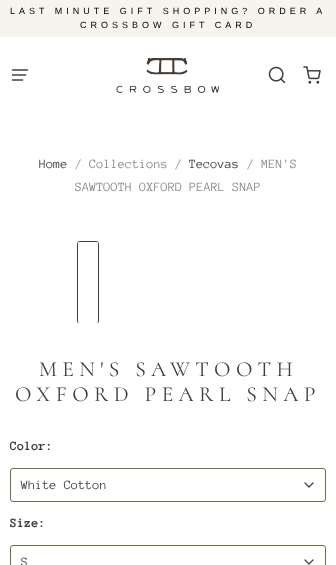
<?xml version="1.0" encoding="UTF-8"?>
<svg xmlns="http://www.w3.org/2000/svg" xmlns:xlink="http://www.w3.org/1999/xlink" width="336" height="565">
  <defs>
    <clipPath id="clip1"><rect x="10" y="215" width="316" height="108" /></clipPath>
  </defs>
  <rect width="100%" height="100%" fill="#ffffff" />
  <rect width="336" height="37" fill="#f6f4ee" />
  <image x="11" y="69" width="18" height="12" xlink:href="image1.png" />
  <image x="116" y="57" width="103" height="37" xlink:href="image2.png" />
  <image x="268" y="66" width="18" height="18" xlink:href="image3.png" />
  <image x="303" y="66" width="18" height="18" xlink:href="image4.png" />
  <g clip-path="url(#clip1)">
    <rect x="77.5" y="241.5" width="21" height="82" rx="2.5" fill="none" stroke="#3d3f39" />
  </g>
  <rect x="79" y="243" width="18" height="79" rx="1" fill="none" stroke="#ffffff" stroke-width="2" />
  <rect x="10.5" y="468.5" width="315" height="33" rx="2.5" fill="none" stroke="#796b45" />
  <path d="M 305 483 l 4 4 l 4 -4" fill="none" stroke="#3d3f39" stroke-width="1.2" stroke-linecap="round" stroke-linejoin="round" />
  <rect x="10.5" y="545.5" width="315" height="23" rx="2.5" fill="none" stroke="#796b45" />
  <path d="M 305 560 l 4 4 l 4 -4" fill="none" stroke="#3d3f39" stroke-width="1.2" stroke-linecap="round" stroke-linejoin="round" />
  <text x="10" y="14" style="font-family: Liberation Sans; font-size: 9px; letter-spacing: 4px; fill: #000000">LAST MINUTE GIFT SHOPPING? ORDER A</text>
  <text x="80" y="28" style="font-family: Liberation Sans; font-size: 9px; letter-spacing: 4px; fill: #000000">CROSSBOW GIFT CARD</text>
  <text x="39" y="168" style="font-family: Anonymous Pro; font-size: 13.1px; fill: #3d3f39">Home</text>
  <text x="75" y="168" style="font-family: Anonymous Pro; font-size: 13.1px; fill: #8b8c88">/ Collections /</text>
  <text x="189" y="168" style="font-family: Anonymous Pro; font-size: 13.1px; fill: #3d3f39">Tecovas</text>
  <text x="247" y="168" style="font-family: Anonymous Pro; font-size: 13.1px; fill: #8b8c88">/ MEN'S</text>
  <text x="75" y="191" style="font-family: Anonymous Pro; font-size: 13.1px; fill: #8b8c88">SAWTOOTH OXFORD PEARL SNAP</text>
  <text x="39" y="376" style="font-family: Cormorant; font-size: 21.5px; letter-spacing: 5.4px; fill: #3d3f39">MEN'S SAWTOOTH</text>
  <text x="15" y="401" style="font-family: Cormorant; font-size: 21.5px; letter-spacing: 5.4px; fill: #3d3f39">OXFORD PEARL SNAP</text>
  <text x="10" y="450" style="font-family: Anonymous Pro; font-size: 13.1px; font-weight: bold; fill: #3d3f39">Color:</text>
  <text x="21" y="489" style="font-family: Anonymous Pro; font-size: 13.1px; fill: #3d3f39">White Cotton</text>
  <text x="10" y="527" style="font-family: Anonymous Pro; font-size: 13.1px; font-weight: bold; fill: #3d3f39">Size:</text>
  <text x="21" y="566" style="font-family: Anonymous Pro; font-size: 13.1px; fill: #3d3f39">S</text>
</svg>
